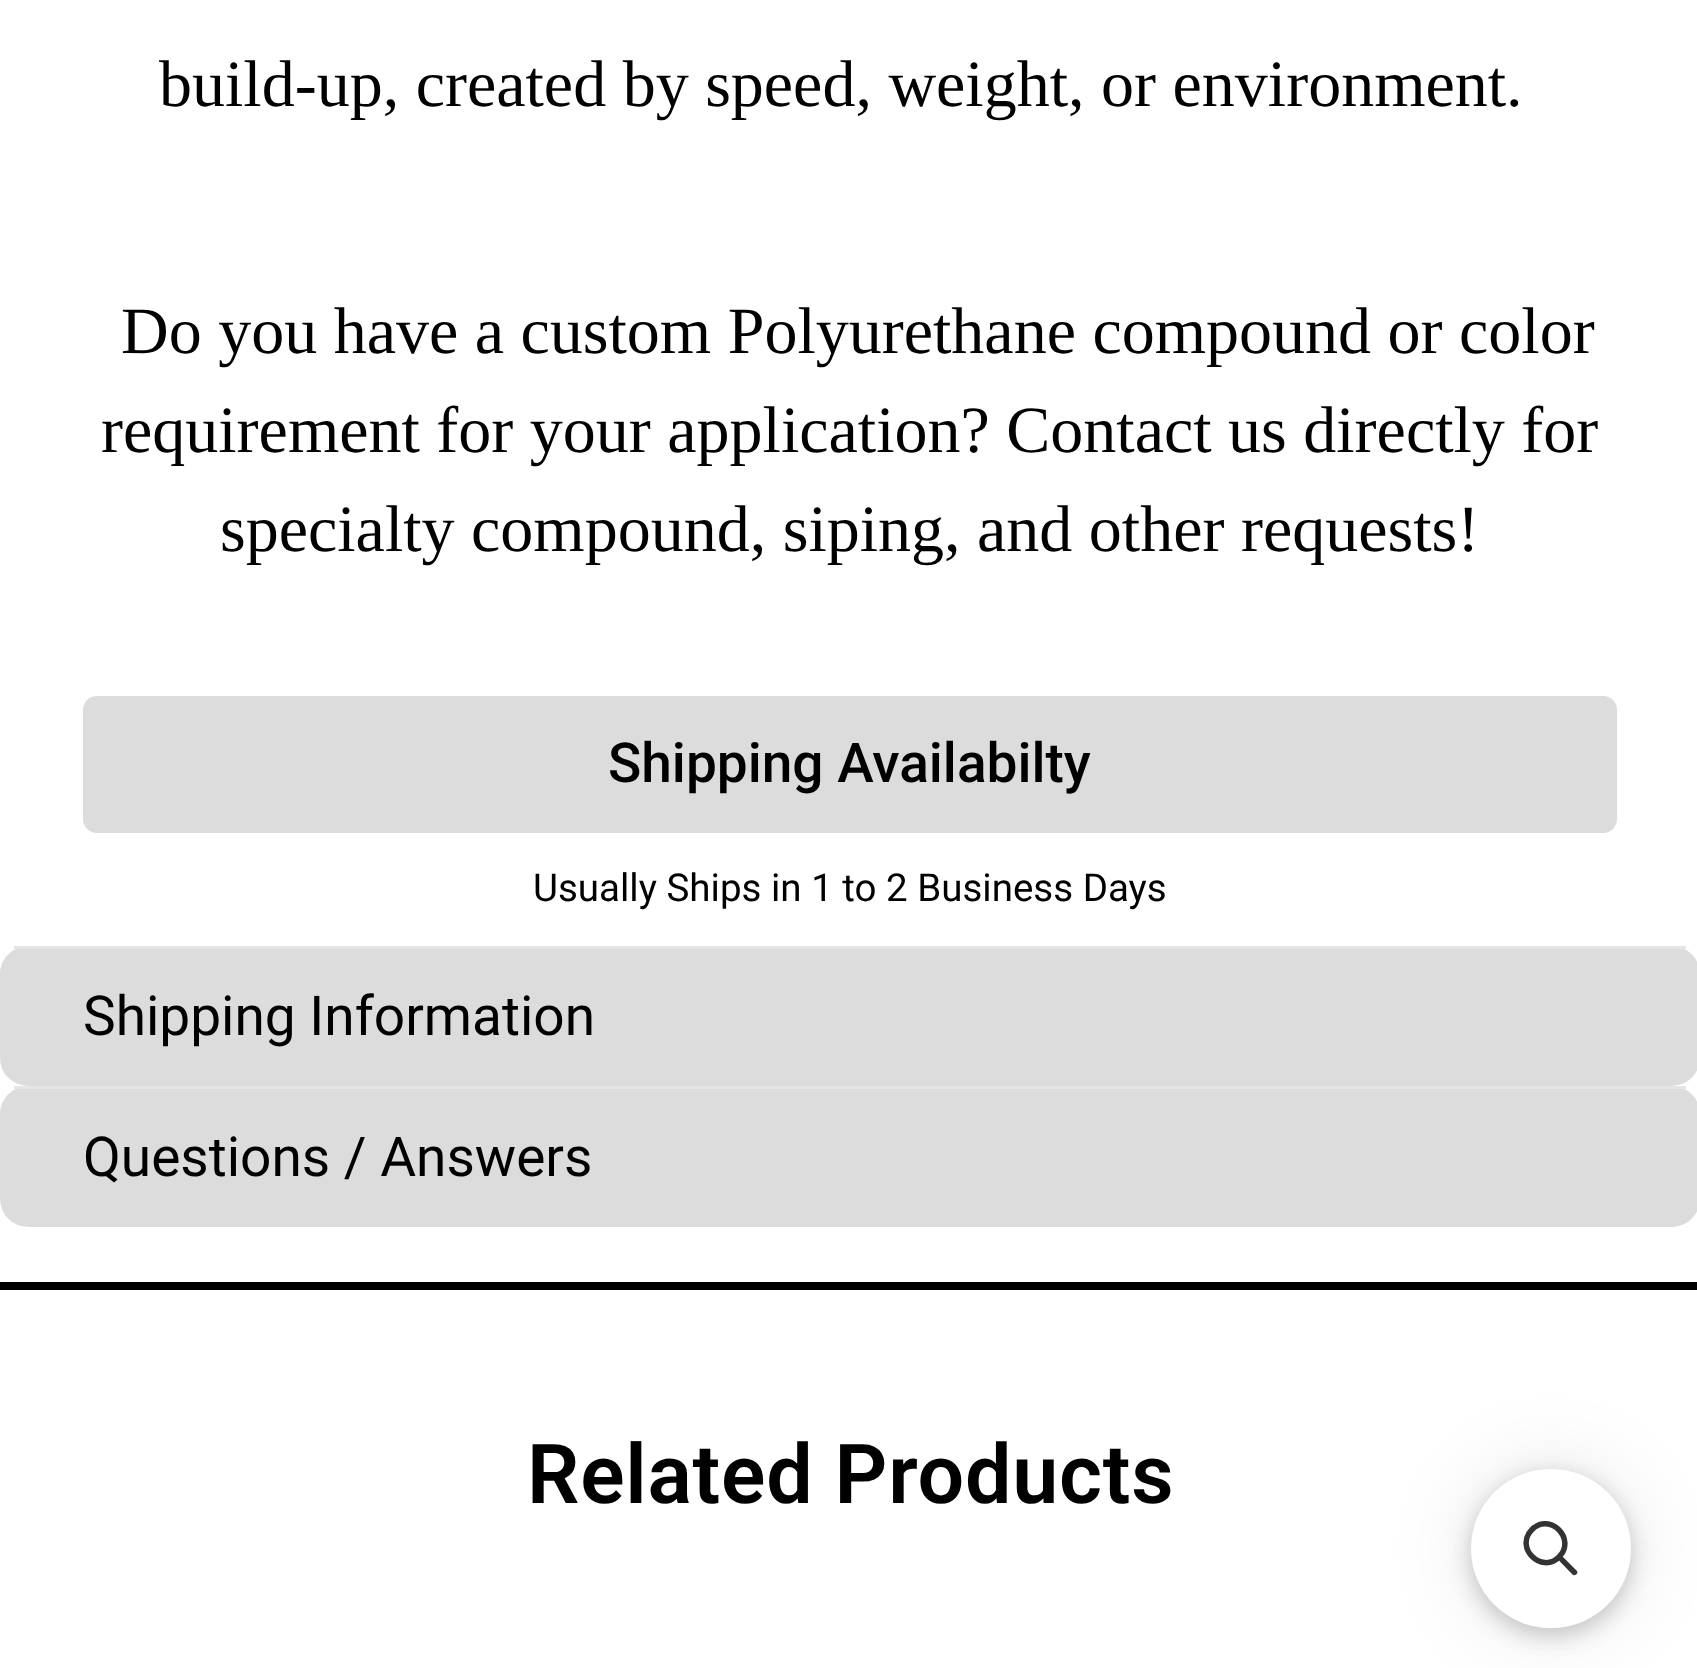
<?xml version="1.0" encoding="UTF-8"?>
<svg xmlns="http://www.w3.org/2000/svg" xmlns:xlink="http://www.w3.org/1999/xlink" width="1697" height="1668">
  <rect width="100%" height="100%" fill="#ffffff" />
  <rect y="1282" width="1697" height="8" fill="#000000" />
  <rect x="83" y="696" width="1534" height="137" rx="14" fill="#dcdcdc" />
  <rect y="946" width="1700" height="140" rx="28" fill="#dcdcdc" />
  <rect x="14" y="946" width="1672" height="3" fill="#e5e5e5" />
  <rect y="1086" width="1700" height="141" rx="28" fill="#dcdcdc" />
  <rect x="14" y="1086" width="1672" height="3" fill="#e5e5e5" />
  <rect x="1471" y="1480" width="160" height="159" rx="79.5" fill="#000000" fill-opacity="0.05" filter="blur(11px)" />
  <rect x="1471" y="1474" width="160" height="160" rx="80" fill="#000000" fill-opacity="0.15" filter="blur(11px)" />
  <rect x="1471" y="1469" width="160" height="159" rx="79.5" fill="#000000" fill-opacity="0.1" filter="blur(41px)" />
  <rect x="1471" y="1469" width="160" height="159" rx="79.5" fill="#ffffff" />
  <path d="M 1532 1529.5 c 17.5 -18 45 9.5 27 27.5 c -17.5 17.5 -45 -9.5 -27 -27.5 z" fill="none" stroke="#333333" stroke-width="5.5" />
  <path d="M 1557 1558.5 l 4 -3.5 l 16 16 c 1.5 2.5 -2 5.5 -4.5 3.5 z" fill="#333333" />
  <text x="159" y="106" style="font-family: Liberation Serif; font-size: 66px; fill: #000000">build-up, created by speed, weight, or environment.</text>
  <text x="121" y="353" style="font-family: Liberation Serif; font-size: 66px; fill: #000000">Do you have a custom Polyurethane compound or color</text>
  <text x="101" y="452" style="font-family: Liberation Serif; font-size: 66px; fill: #000000">requirement for your application? Contact us directly for</text>
  <text x="220" y="551" style="font-family: Liberation Serif; font-size: 66px; fill: #000000">specialty compound, siping, and other requests!</text>
  <text x="608" y="782" style="font-family: Roboto; font-size: 55px; font-weight: 500; fill: #000000">Shipping Availabilty</text>
  <text x="533" y="901" style="font-family: Roboto; font-size: 38.5px; fill: #000000">Usually Ships in 1 to 2 Business Days</text>
  <text x="83" y="1035" style="font-family: Roboto; font-size: 55px; fill: #000000">Shipping Information</text>
  <text x="83" y="1176" style="font-family: Roboto; font-size: 55px; fill: #000000">Questions / Answers</text>
  <text x="527" y="1503" style="font-family: Roboto; font-size: 82.5px; font-weight: 600; letter-spacing: 0.75px; fill: #000000">Related Products</text>
</svg>
